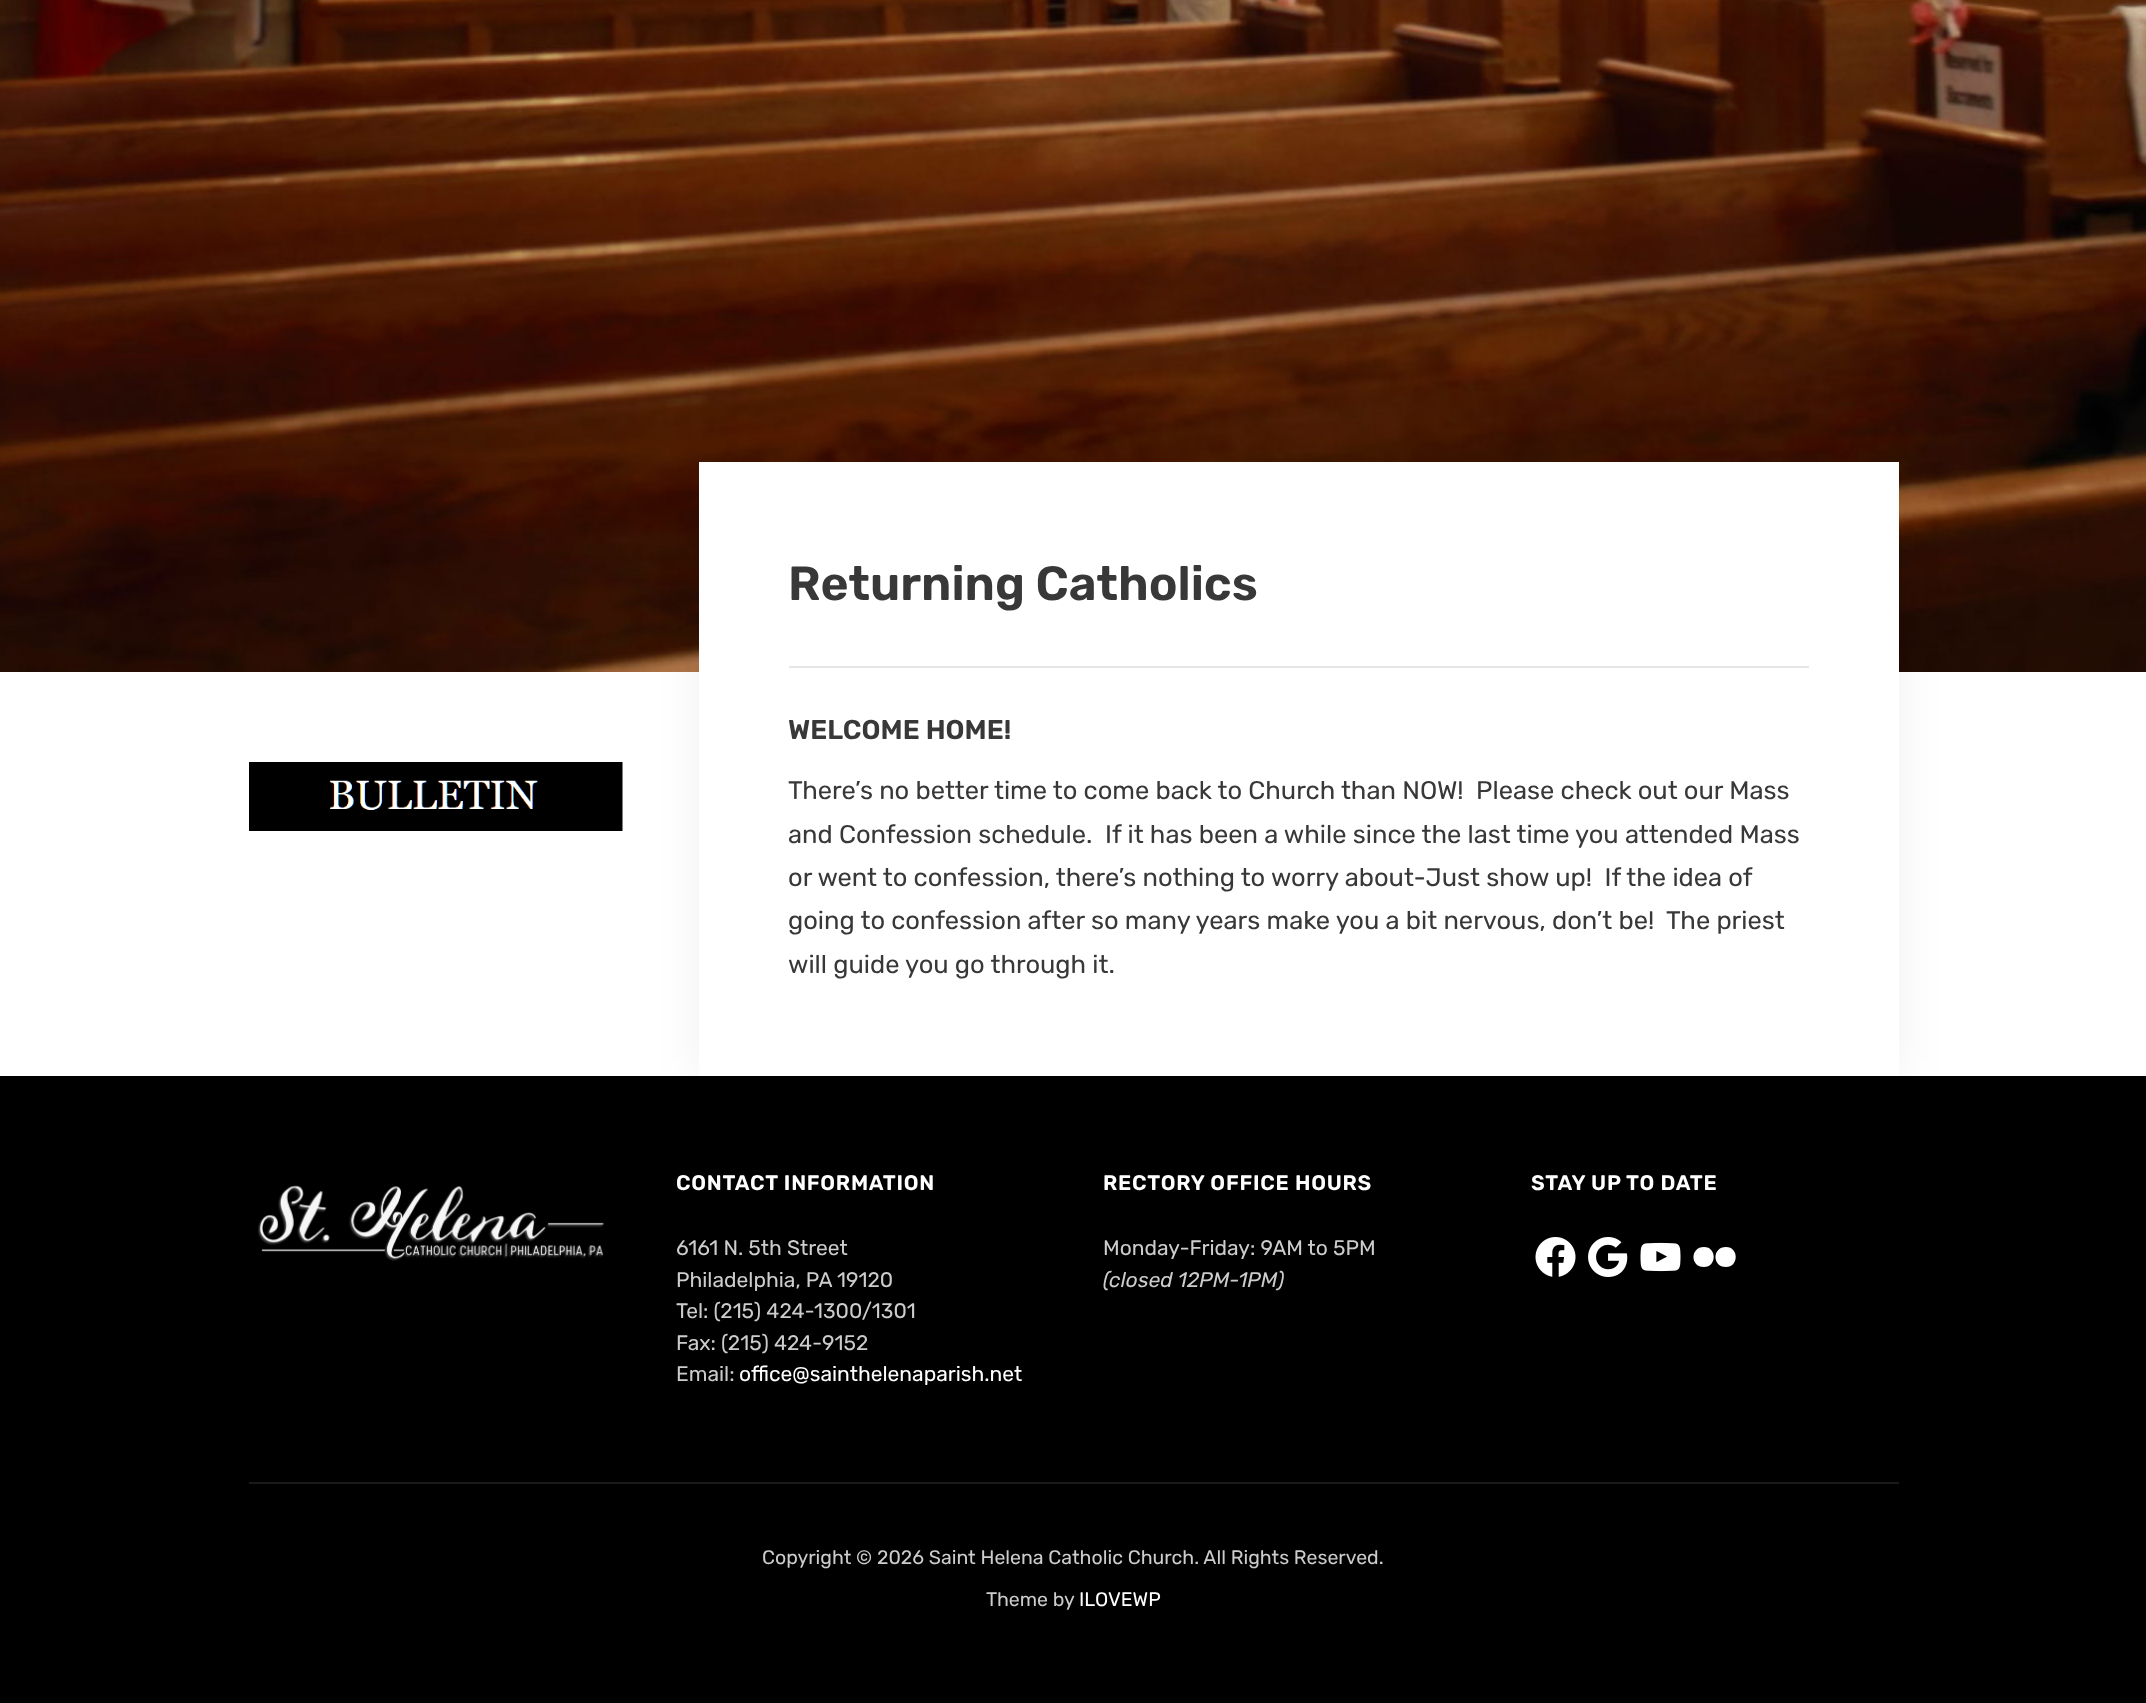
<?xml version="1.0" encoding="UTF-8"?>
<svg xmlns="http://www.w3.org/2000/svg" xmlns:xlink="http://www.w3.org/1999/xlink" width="2146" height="1703">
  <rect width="100%" height="100%" fill="#ffffff" />
  <image x="0" y="0" width="2146" height="672" xlink:href="image1.png" />
  <image x="249" y="762" width="374" height="69" xlink:href="image2.png" />
  <rect x="699" y="462" width="1200" height="614" fill="#000000" fill-opacity="0.06" filter="blur(22.5px)" />
  <rect x="699" y="462" width="1200" height="614" fill="#ffffff" />
  <rect x="789" y="666" width="1020" height="2" fill="#e6e6e6" />
  <rect y="1076" width="2146" height="627" fill="#000000" />
  <rect x="249" y="1482" width="1650" height="2" fill="#1a1a1a" />
  <image x="1535" y="1237" width="41" height="40" xlink:href="image3.png" />
  <image x="1588" y="1237" width="40" height="40" xlink:href="image4.png" />
  <image x="1640" y="1242" width="41" height="30" xlink:href="image5.png" />
  <path d="M 1704 1247 c -14 0 -14 20 0 20 c 13 0 13 -20 0 -20 z m 22 0 c -14 0 -14 20 0 20 c 13 0 13 -20 0 -20 z" fill="#ffffff" />
  <image x="249" y="1185" width="355" height="76" xlink:href="image6.png" />
  <text x="788" y="600" style="font-family: Rubik; font-size: 48px; font-weight: 600; fill: #383838">Returning Catholics</text>
  <text x="788" y="739" style="font-family: Rubik; font-size: 27px; font-weight: 600; fill: #383838">WELCOME HOME!</text>
  <text x="788" y="799" style="font-family: Rubik; font-size: 25.5px; fill: #383838" xml:space="preserve">There’s no better time to come back to Church than NOW!  Please check out our Mass</text>
  <text x="788" y="843" style="font-family: Rubik; font-size: 25.5px; fill: #383838" xml:space="preserve">and Confession schedule.  If it has been a while since the last time you attended Mass</text>
  <text x="788" y="886" style="font-family: Rubik; font-size: 25.5px; fill: #383838" xml:space="preserve">or went to confession, there’s nothing to worry about-Just show up!  If the idea of</text>
  <text x="788" y="929" style="font-family: Rubik; font-size: 25.5px; fill: #383838" xml:space="preserve">going to confession after so many years make you a bit nervous, don’t be!  The priest</text>
  <text x="788" y="973" style="font-family: Rubik; font-size: 25.5px; fill: #383838">will guide you go through it.</text>
  <text x="676" y="1190" style="font-family: Rubik; font-size: 21px; font-weight: 600; letter-spacing: 0.75px; fill: #ffffff">CONTACT INFORMATION</text>
  <text x="676" y="1255" style="font-family: Rubik; font-size: 21px; fill: #cccccc">6161 N. 5th Street</text>
  <text x="676" y="1287" style="font-family: Rubik; font-size: 21px; fill: #cccccc">Philadelphia, PA 19120</text>
  <text x="676" y="1318" style="font-family: Rubik; font-size: 21px; fill: #cccccc">Tel: (215) 424-1300/1301</text>
  <text x="676" y="1350" style="font-family: Rubik; font-size: 21px; fill: #cccccc">Fax: (215) 424-9152</text>
  <text x="676" y="1381" style="font-family: Rubik; font-size: 21px; fill: #cccccc">Email:</text>
  <text x="739" y="1381" style="font-family: Rubik; font-size: 21px; fill: #ffffff">office@sainthelenaparish.net</text>
  <text x="1103" y="1190" style="font-family: Rubik; font-size: 21px; font-weight: 600; letter-spacing: 0.75px; fill: #ffffff">RECTORY OFFICE HOURS</text>
  <text x="1103" y="1255" style="font-family: Rubik; font-size: 21px; fill: #cccccc">Monday-Friday: 9AM to 5PM</text>
  <text x="1103" y="1287" style="font-family: Rubik; font-size: 21px; font-style: italic; fill: #cccccc">(closed 12PM-1PM)</text>
  <text x="1531" y="1190" style="font-family: Rubik; font-size: 21px; font-weight: 600; letter-spacing: 0.75px; fill: #ffffff">STAY UP TO DATE</text>
  <text x="762" y="1564" style="font-family: Rubik; font-size: 19.5px; fill: #cccccc">Copyright © 2026 Saint Helena Catholic Church. All Rights Reserved.</text>
  <text x="986" y="1606" style="font-family: Rubik; font-size: 19.5px; fill: #cccccc">Theme by</text>
  <text x="1079" y="1606" style="font-family: Rubik; font-size: 19.5px; fill: #ffffff">ILOVEWP</text>
</svg>
